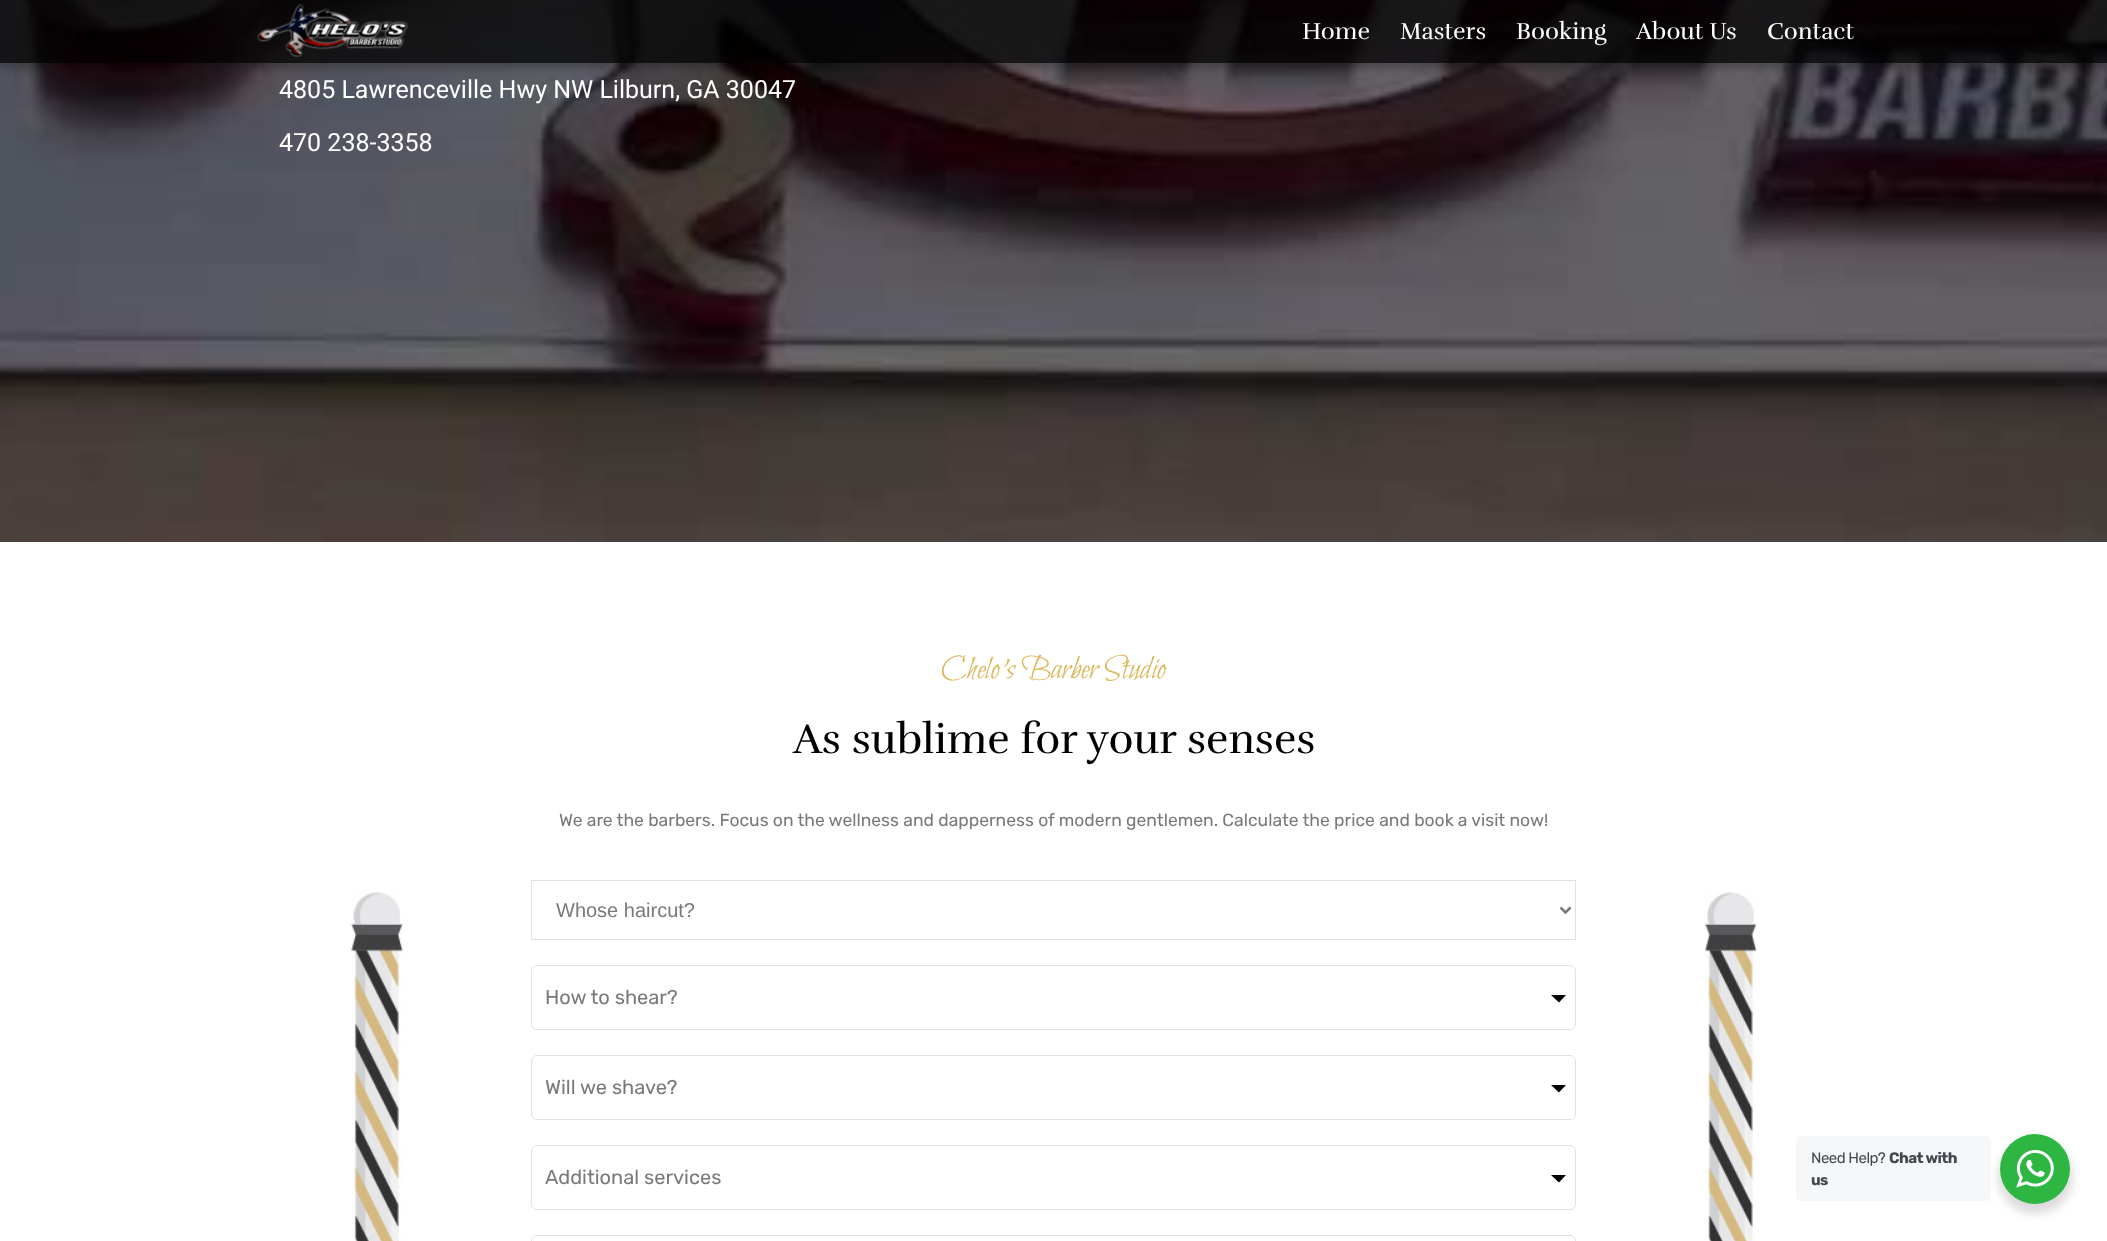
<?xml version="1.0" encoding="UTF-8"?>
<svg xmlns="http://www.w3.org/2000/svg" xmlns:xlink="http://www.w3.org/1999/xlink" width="2107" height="1241">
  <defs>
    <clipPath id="clip1"><path d="M 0 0 h 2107 v 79 h -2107 z m 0 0 h 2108 v 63 h -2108 z" clip-rule="evenodd" /></clipPath>
  </defs>
  <rect width="100%" height="100%" fill="#ffffff" />
  <image x="0" y="0" width="2107" height="542" xlink:href="image2.png" />
  <g clip-path="url(#clip1)">
    <rect y="6" width="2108" height="63" fill="#000000" fill-opacity="0.2" filter="blur(3px)" />
  </g>
  <rect width="2107" height="63" fill="#000000" fill-opacity="0.75" />
  <image x="257" y="3" width="152" height="55" xlink:href="image1.png" />
  <image x="351" y="892" width="52" height="349" xlink:href="image3.png" />
  <rect x="531.5" y="880.5" width="1044" height="59" fill="none" stroke="#dee2e6" />
  <path d="M 1560.5 907.5 l 5 5 l 5 -5" fill="none" stroke="#797979" stroke-width="2.5" />
  <rect x="531.5" y="965.5" width="1044" height="64" rx="5.5" fill="none" stroke="#dee2e6" />
  <path d="M 1551 995 h 15 l -7 7.5 z" fill="#000000" />
  <rect x="531.5" y="1055.5" width="1044" height="64" rx="5.5" fill="none" stroke="#dee2e6" />
  <path d="M 1551 1085 h 15 l -7 7.5 z" fill="#000000" />
  <rect x="531.5" y="1145.5" width="1044" height="64" rx="5.5" fill="none" stroke="#dee2e6" />
  <path d="M 1551 1175 h 15 l -7 7.5 z" fill="#000000" />
  <rect x="531.5" y="1235.5" width="1044" height="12" rx="5.5" fill="none" stroke="#dee2e6" />
  <image x="1705" y="892" width="52" height="349" xlink:href="image4.png" />
  <rect x="1998" y="1139" width="75" height="75" rx="37.5" fill="#000000" fill-opacity="0.14" filter="blur(5px)" />
  <rect x="1796" y="1136" width="195" height="65" rx="5" fill="#f5f7f9" />
  <circle cx="2035" cy="1169" r="35" fill="#2db742" />
  <image x="2016" y="1150" width="38" height="38" xlink:href="image5.png" />
  <text x="1302" y="39" style="font-family: Rufina; font-size: 23.75px; fill: #ffffff">Home</text>
  <text x="1400" y="39" style="font-family: Rufina; font-size: 23.75px; fill: #ffffff">Masters</text>
  <text x="1516" y="39" style="font-family: Rufina; font-size: 23.75px; fill: #ffffff">Booking</text>
  <text x="1636" y="39" style="font-family: Rufina; font-size: 23.75px; fill: #ffffff">About Us</text>
  <text x="1767" y="39" style="font-family: Rufina; font-size: 23.75px; fill: #ffffff">Contact</text>
  <text x="279" y="98" style="font-family: Roboto; font-size: 25px; fill: #ffffff">4805 Lawrenceville Hwy NW Lilburn, GA 30047</text>
  <text x="279" y="151" style="font-family: Roboto; font-size: 25px; fill: #ffffff">470 238-3358</text>
  <text x="941" y="678" style="font-family: Bilbo Swash Caps; font-size: 33.75px; fill: #dbb859">Chelo's Barber Studio</text>
  <text x="793" y="753" style="font-family: Rufina; font-size: 42.5px; fill: #000000">As sublime for your senses</text>
  <text x="559" y="826" style="font-family: Rubik; font-size: 17.5px; fill: #797979">We are the barbers. Focus on the wellness and dapperness of modern gentlemen. Calculate the price and book a visit now!</text>
  <text x="556" y="917" style="font-family: Liberation Sans; font-size: 20px; fill: #797979">Whose haircut?</text>
  <text x="545" y="1004" style="font-family: Rubik; font-size: 20px; fill: #797979">How to shear?</text>
  <text x="545" y="1094" style="font-family: Rubik; font-size: 20px; fill: #797979">Will we shave?</text>
  <text x="545" y="1184" style="font-family: Rubik; font-size: 20px; fill: #797979">Additional services</text>
  <text x="1811" y="1163" style="font-family: Rubik; font-size: 15px; letter-spacing: -0.5px; fill: #43474e">Need Help?</text>
  <text x="1889" y="1163" style="font-family: Rubik; font-size: 15px; font-weight: bold; letter-spacing: -0.5px; fill: #43474e">Chat with</text>
  <text x="1811" y="1185" style="font-family: Rubik; font-size: 15px; font-weight: bold; letter-spacing: -0.5px; fill: #43474e">us</text>
</svg>
